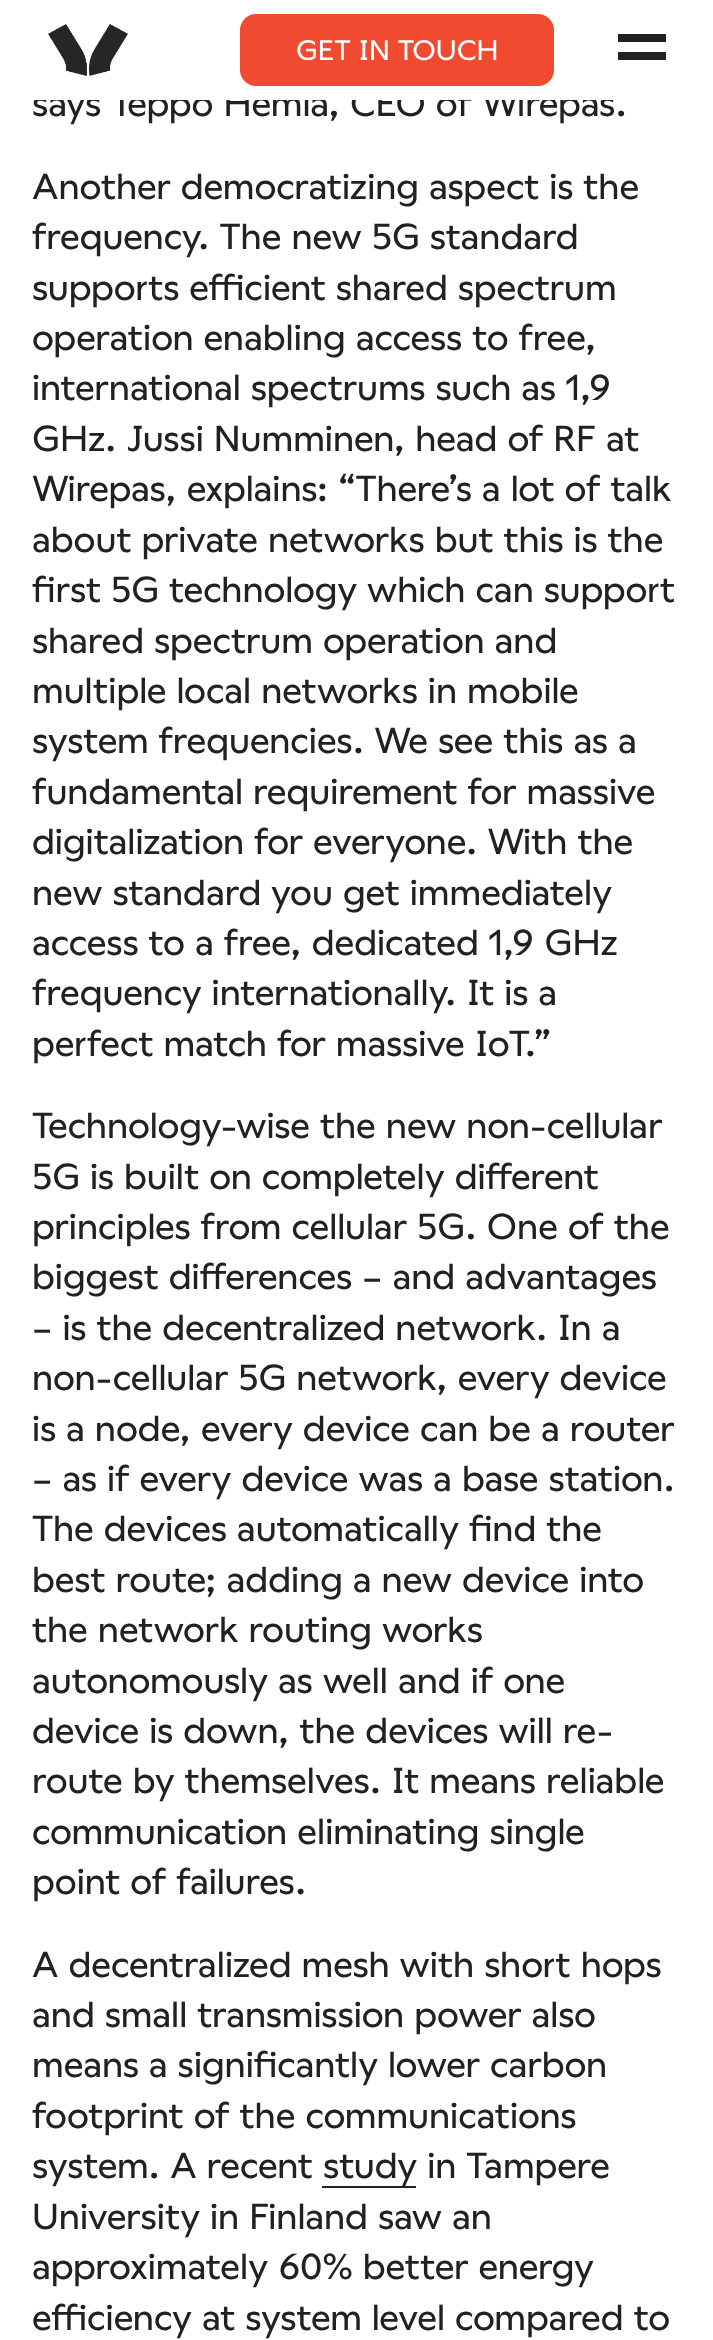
<?xml version="1.0" encoding="UTF-8"?>
<svg xmlns="http://www.w3.org/2000/svg" xmlns:xlink="http://www.w3.org/1999/xlink" width="713" height="2340">
  <rect width="100%" height="100%" fill="#ffffff" />
  <image x="48" y="24" width="80" height="52" xlink:href="image1.png" />
  <rect x="242" y="16" width="310" height="68" rx="14" fill="#f04a30" stroke="#f04a30" stroke-width="4" />
  <rect x="618" y="34" width="48" height="8" fill="#212121" />
  <rect x="618" y="52" width="48" height="8" fill="#212121" />
  <rect x="322" y="2186" width="94" height="2" fill="#212121" />
  <text x="296" y="60" style="font-family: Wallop; font-size: 28px; font-weight: 500; fill: #ffffff">GET IN TOUCH</text>
  <text x="32" y="116" style="font-family: Wallop; font-size: 36px; font-weight: 500; fill: #212121">says Teppo Hemiä, CEO of Wirepas.</text>
  <rect x="34" y="89" width="580" height="11" fill="#ffffff" />
  <text x="32" y="199" style="font-family: Wallop; font-size: 36px; font-weight: 500; fill: #212121">Another democratizing aspect is the</text>
  <text x="32" y="249" style="font-family: Wallop; font-size: 36px; font-weight: 500; fill: #212121">frequency. The new 5G standard</text>
  <text x="32" y="300" style="font-family: Wallop; font-size: 36px; font-weight: 500; fill: #212121">supports efficient shared spectrum</text>
  <text x="32" y="350" style="font-family: Wallop; font-size: 36px; font-weight: 500; fill: #212121">operation enabling access to free,</text>
  <text x="32" y="400" style="font-family: Wallop; font-size: 36px; font-weight: 500; fill: #212121">international spectrums such as 1,9</text>
  <text x="32" y="451" style="font-family: Wallop; font-size: 36px; font-weight: 500; fill: #212121">GHz. Jussi Numminen, head of RF at</text>
  <text x="32" y="501" style="font-family: Wallop; font-size: 36px; font-weight: 500; fill: #212121">Wirepas, explains: “There’s a lot of talk</text>
  <text x="32" y="552" style="font-family: Wallop; font-size: 36px; font-weight: 500; fill: #212121">about private networks but this is the</text>
  <text x="32" y="602" style="font-family: Wallop; font-size: 36px; font-weight: 500; fill: #212121">first 5G technology which can support</text>
  <text x="32" y="653" style="font-family: Wallop; font-size: 36px; font-weight: 500; fill: #212121">shared spectrum operation and</text>
  <text x="32" y="703" style="font-family: Wallop; font-size: 36px; font-weight: 500; fill: #212121">multiple local networks in mobile</text>
  <text x="32" y="753" style="font-family: Wallop; font-size: 36px; font-weight: 500; fill: #212121">system frequencies. We see this as a</text>
  <text x="32" y="804" style="font-family: Wallop; font-size: 36px; font-weight: 500; fill: #212121">fundamental requirement for massive</text>
  <text x="32" y="854" style="font-family: Wallop; font-size: 36px; font-weight: 500; fill: #212121">digitalization for everyone. With the</text>
  <text x="32" y="905" style="font-family: Wallop; font-size: 36px; font-weight: 500; fill: #212121">new standard you get immediately</text>
  <text x="32" y="955" style="font-family: Wallop; font-size: 36px; font-weight: 500; fill: #212121">access to a free, dedicated 1,9 GHz</text>
  <text x="32" y="1005" style="font-family: Wallop; font-size: 36px; font-weight: 500; fill: #212121">frequency internationally. It is a</text>
  <text x="32" y="1056" style="font-family: Wallop; font-size: 36px; font-weight: 500; fill: #212121">perfect match for massive IoT.”</text>
  <text x="32" y="1138" style="font-family: Wallop; font-size: 36px; font-weight: 500; fill: #212121">Technology-wise the new non-cellular</text>
  <text x="32" y="1189" style="font-family: Wallop; font-size: 36px; font-weight: 500; fill: #212121">5G is built on completely different</text>
  <text x="32" y="1239" style="font-family: Wallop; font-size: 36px; font-weight: 500; fill: #212121">principles from cellular 5G. One of the</text>
  <text x="32" y="1289" style="font-family: Wallop; font-size: 36px; font-weight: 500; fill: #212121">biggest differences – and advantages</text>
  <text x="32" y="1340" style="font-family: Wallop; font-size: 36px; font-weight: 500; fill: #212121">– is the decentralized network. In a</text>
  <text x="32" y="1390" style="font-family: Wallop; font-size: 36px; font-weight: 500; fill: #212121">non-cellular 5G network, every device</text>
  <text x="32" y="1441" style="font-family: Wallop; font-size: 36px; font-weight: 500; fill: #212121">is a node, every device can be a router</text>
  <text x="32" y="1491" style="font-family: Wallop; font-size: 36px; font-weight: 500; fill: #212121">– as if every device was a base station.</text>
  <text x="32" y="1541" style="font-family: Wallop; font-size: 36px; font-weight: 500; fill: #212121">The devices automatically find the</text>
  <text x="32" y="1592" style="font-family: Wallop; font-size: 36px; font-weight: 500; fill: #212121">best route; adding a new device into</text>
  <text x="32" y="1642" style="font-family: Wallop; font-size: 36px; font-weight: 500; fill: #212121">the network routing works</text>
  <text x="32" y="1693" style="font-family: Wallop; font-size: 36px; font-weight: 500; fill: #212121">autonomously as well and if one</text>
  <text x="32" y="1743" style="font-family: Wallop; font-size: 36px; font-weight: 500; fill: #212121">device is down, the devices will re-</text>
  <text x="32" y="1793" style="font-family: Wallop; font-size: 36px; font-weight: 500; fill: #212121">route by themselves. It means reliable</text>
  <text x="32" y="1844" style="font-family: Wallop; font-size: 36px; font-weight: 500; fill: #212121">communication eliminating single</text>
  <text x="32" y="1894" style="font-family: Wallop; font-size: 36px; font-weight: 500; fill: #212121">point of failures.</text>
  <text x="32" y="1977" style="font-family: Wallop; font-size: 36px; font-weight: 500; fill: #212121">A decentralized mesh with short hops</text>
  <text x="32" y="2027" style="font-family: Wallop; font-size: 36px; font-weight: 500; fill: #212121">and small transmission power also</text>
  <text x="32" y="2077" style="font-family: Wallop; font-size: 36px; font-weight: 500; fill: #212121">means a significantly lower carbon</text>
  <text x="32" y="2128" style="font-family: Wallop; font-size: 36px; font-weight: 500; fill: #212121">footprint of the communications</text>
  <text x="32" y="2178" style="font-family: Wallop; font-size: 36px; font-weight: 500; fill: #212121">system. A recent</text>
  <text x="323" y="2178" style="font-family: Wallop; font-size: 36px; font-weight: 500; fill: #212121">study in Tampere</text>
  <text x="32" y="2229" style="font-family: Wallop; font-size: 36px; font-weight: 500; fill: #212121">University in Finland saw an</text>
  <text x="32" y="2279" style="font-family: Wallop; font-size: 36px; font-weight: 500; fill: #212121">approximately 60% better energy</text>
  <text x="32" y="2330" style="font-family: Wallop; font-size: 36px; font-weight: 500; fill: #212121">efficiency at system level compared to</text>
</svg>
